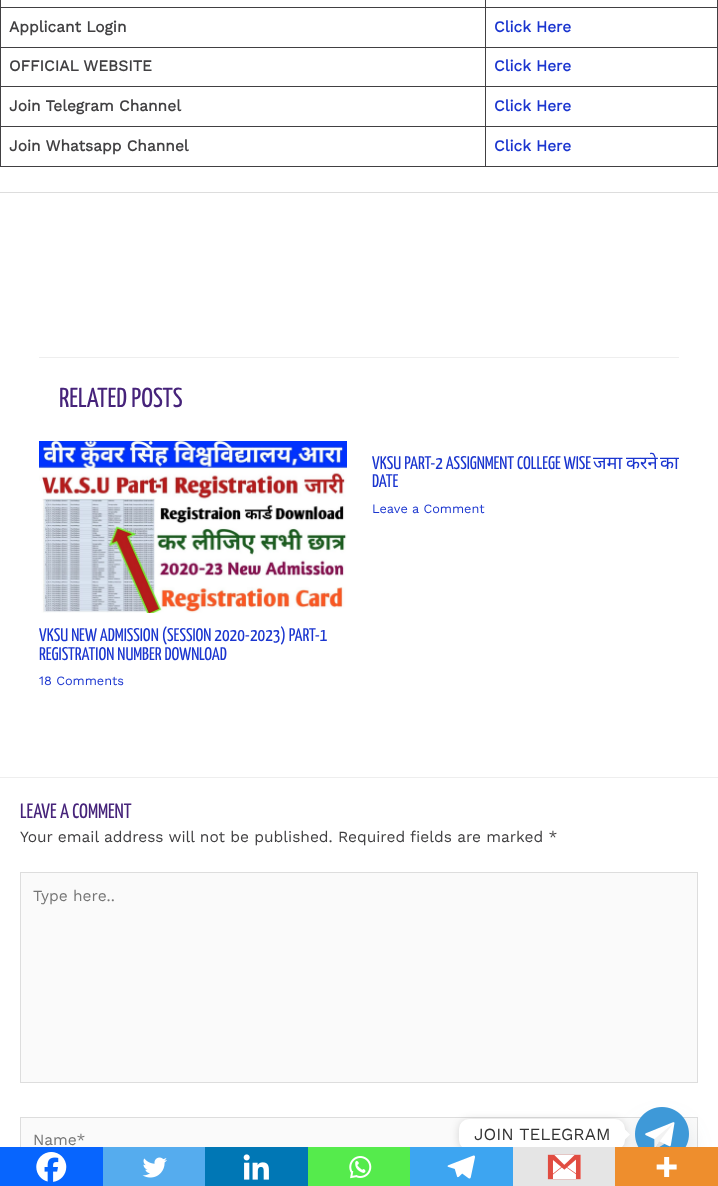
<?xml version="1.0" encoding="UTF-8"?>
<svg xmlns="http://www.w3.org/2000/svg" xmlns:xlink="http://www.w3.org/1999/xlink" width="718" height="1186">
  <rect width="100%" height="100%" fill="#ffffff" />
  <rect x="485" y="7" width="233" height="1" fill="#414042" />
  <rect x="485" y="47" width="233" height="1" fill="#414042" />
  <rect x="485" y="86" width="233" height="1" fill="#414042" />
  <rect x="485" y="126" width="233" height="1" fill="#414042" />
  <rect x="717" y="126" width="1" height="41" fill="#414042" />
  <rect x="485" y="166" width="233" height="1" fill="#414042" />
  <rect x="485" y="126" width="1" height="41" fill="#414042" />
  <rect y="126" width="486" height="1" fill="#414042" />
  <rect x="485" y="86" width="1" height="41" fill="#414042" />
  <rect y="86" width="486" height="1" fill="#414042" />
  <rect x="485" y="47" width="1" height="40" fill="#414042" />
  <rect y="47" width="486" height="1" fill="#414042" />
  <rect x="485" y="7" width="1" height="41" fill="#414042" />
  <rect y="7" width="486" height="1" fill="#414042" />
  <rect x="485" width="1" height="8" fill="#414042" />
  <rect y="166" width="486" height="1" fill="#414042" />
  <rect y="126" width="1" height="41" fill="#414042" />
  <rect y="86" width="1" height="41" fill="#414042" />
  <rect y="47" width="1" height="40" fill="#414042" />
  <rect width="1" height="48" fill="#414042" />
  <rect x="717" y="86" width="1" height="41" fill="#414042" />
  <rect x="717" y="47" width="1" height="40" fill="#414042" />
  <rect x="717" width="1" height="48" fill="#414042" />
  <rect x="21" y="1118" width="676" height="29" fill="#fafafa" />
  <rect x="20.5" y="1117.5" width="677" height="47" fill="none" stroke="#dddddd" />
  <rect y="1147" width="103" height="39" fill="#0765fe" />
  <image x="36" y="1152" width="31" height="30" xlink:href="image1.png" />
  <rect x="103" y="1147" width="102" height="39" fill="#55acee" />
  <image x="142" y="1157" width="25" height="21" xlink:href="image2.png" />
  <rect x="205" y="1147" width="103" height="39" fill="#0077b5" />
  <image x="243" y="1154" width="26" height="26" xlink:href="image3.png" />
  <rect x="308" y="1147" width="102" height="39" fill="#55eb4c" />
  <image x="349" y="1156" width="23" height="23" xlink:href="image4.png" />
  <rect x="635" y="1123" width="54" height="54" rx="27" fill="#49687e" fill-opacity="0.16" filter="blur(12px)" />
  <image x="635" y="1107" width="54" height="40" xlink:href="image9.png" />
  <rect x="459" y="1120" width="166" height="31" rx="10" fill="#000000" fill-opacity="0.15" filter="blur(4px)" />
  <rect x="459" y="1119" width="166" height="31" rx="10" fill="#ffffff" />
  <rect x="410" y="1147" width="103" height="39" fill="#3da5f1" />
  <image x="447" y="1155" width="28" height="24" xlink:href="image5.png" />
  <rect x="513" y="1147" width="102" height="39" fill="#e5e5e5" />
  <image x="547" y="1154" width="34" height="26" xlink:href="image6.png" />
  <rect x="615" y="1147" width="103" height="39" fill="#ee8e2d" />
  <image x="656" y="1157" width="21" height="20" xlink:href="image7.png" />
  <rect y="192" width="718" height="1" fill="#dddddd" />
  <rect x="39" y="357" width="640" height="1" fill="#eeeeee" />
  <image x="39" y="441" width="308" height="172" xlink:href="image8.png" />
  <rect y="777" width="718" height="1" fill="#eeeeee" />
  <rect x="20.5" y="872.5" width="677" height="210" fill="#fafafa" stroke="#dddddd" />
  <path d="M 625 1139.5 v -10 l 5 5 z" fill="#ffffff" />
  <text x="9" y="32" style="font-family: Work Sans; font-size: 15.5px; font-weight: bold; fill: #414042">Applicant Login</text>
  <text x="494" y="32" style="font-family: Work Sans; font-size: 15.5px; font-weight: bold; fill: #1a35cf">Click Here</text>
  <text x="9" y="71" style="font-family: Work Sans; font-size: 15.5px; font-weight: bold; fill: #414042">OFFICIAL WEBSITE</text>
  <text x="494" y="71" style="font-family: Work Sans; font-size: 15.5px; font-weight: bold; fill: #1a35cf">Click Here</text>
  <text x="9" y="111" style="font-family: Work Sans; font-size: 15.5px; font-weight: bold; fill: #414042">Join Telegram Channel</text>
  <text x="494" y="111" style="font-family: Work Sans; font-size: 15.5px; font-weight: bold; fill: #1a35cf">Click Here</text>
  <text x="9" y="151" style="font-family: Work Sans; font-size: 15.5px; font-weight: bold; fill: #414042">Join Whatsapp Channel</text>
  <text x="494" y="151" style="font-family: Work Sans; font-size: 15.5px; font-weight: bold; fill: #1a35cf">Click Here</text>
  <text x="59" y="407" style="font-family: Yanone Kaffeesatz; font-size: 27.5px; font-weight: 200; fill: #46237a">RELATED POSTS</text>
  <text x="372" y="469" style="font-family: Yanone Kaffeesatz; font-size: 18.25px; font-weight: 200; fill: #1a35cf">VKSU PART-2 ASSIGNMENT COLLEGE WISE</text>
  <text x="593" y="469" style="font-family: Noto Sans; font-size: 18.25px; fill: #1a35cf">जमा</text>
  <text x="626" y="469" style="font-family: Noto Sans; font-size: 18.25px; fill: #1a35cf">करने</text>
  <text x="660" y="469" style="font-family: Noto Sans; font-size: 18.25px; fill: #1a35cf">का</text>
  <text x="372" y="487" style="font-family: Yanone Kaffeesatz; font-size: 18.25px; font-weight: 200; fill: #1a35cf">DATE</text>
  <text x="372" y="513" style="font-family: Work Sans; font-size: 12.75px; fill: #1a35cf">Leave a Comment</text>
  <text x="39" y="641" style="font-family: Yanone Kaffeesatz; font-size: 18.25px; font-weight: 200; fill: #1a35cf">VKSU NEW ADMISSION (SESSION 2020-2023) PART-1</text>
  <text x="39" y="660" style="font-family: Yanone Kaffeesatz; font-size: 18.25px; font-weight: 200; fill: #1a35cf">REGISTRATION NUMBER DOWNLOAD</text>
  <text x="39" y="685" style="font-family: Work Sans; font-size: 12.75px; fill: #1a35cf">18 Comments</text>
  <text x="20" y="818" style="font-family: Yanone Kaffeesatz; font-size: 20.75px; font-weight: 200; fill: #46237a">LEAVE A COMMENT</text>
  <text x="20" y="842" style="font-family: Work Sans; font-size: 15.5px; fill: #414042">Your email address will not be published. Required fields are marked *</text>
  <text x="33" y="901" style="font-family: Work Sans; font-size: 15.5px; fill: #757575">Type here..</text>
  <text x="33" y="1145" style="font-family: Work Sans; font-size: 15.5px; fill: #757575">Name*</text>
  <text x="474" y="1140" style="font-family: Work Sans; font-size: 17px; fill: #333333">JOIN TELEGRAM</text>
</svg>
